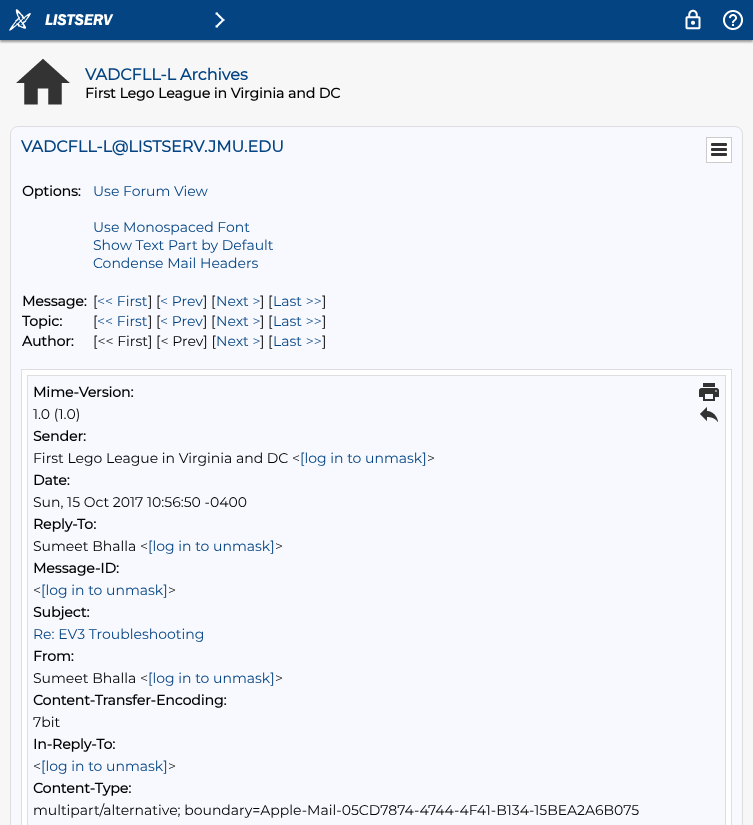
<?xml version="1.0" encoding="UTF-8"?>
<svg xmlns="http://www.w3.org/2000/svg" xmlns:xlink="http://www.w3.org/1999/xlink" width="753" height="825">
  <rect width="100%" height="100%" fill="#f7f7f7" />
  <rect y="2" width="753" height="40" fill="#999999" filter="blur(1px)" />
  <rect width="753" height="40" fill="#054483" />
  <image x="9" y="9" width="22" height="22" xlink:href="image1.png" />
  <image x="45" y="14" width="69" height="12" xlink:href="image2.png" />
  <image x="215" y="12" width="10" height="16" xlink:href="image3.png" />
  <image x="685" y="9" width="16" height="21" xlink:href="image4.png" />
  <image x="723" y="10" width="20" height="20" xlink:href="image5.png" />
  <image x="16" y="59" width="54" height="46" xlink:href="image6.png" />
  <rect x="10.5" y="126.5" width="732" height="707" rx="7.5" fill="#f7f9fe" stroke="#dedede" />
  <rect x="706.5" y="137.5" width="25" height="25" fill="#ffffff" stroke="#cccccc" />
  <image x="711" y="143" width="16" height="13" xlink:href="image7.png" />
  <rect x="21.5" y="369.5" width="710" height="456" fill="none" stroke="#dedede" />
  <rect x="22" y="370" width="709" height="455" fill="#ffffff" />
  <rect x="27.5" y="375.5" width="698" height="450" fill="none" stroke="#dedede" />
  <rect x="28" y="376" width="697" height="449" fill="#f7f9fe" />
  <image x="699" y="383" width="20" height="18" xlink:href="image8.png" />
  <image x="700" y="407" width="18" height="15" xlink:href="image9.png" />
  <text x="85" y="80" style="font-family: Montserrat; font-size: 16px; font-weight: bold; fill: #054483">VADCFLL-L Archives</text>
  <text x="85" y="98" style="font-family: Montserrat; font-size: 14px; font-weight: bold; fill: #000000">First Lego League in Virginia and DC</text>
  <text x="21" y="152" style="font-family: Montserrat; font-size: 16px; font-weight: bold; fill: #054483">VADCFLL-L@LISTSERV.JMU.EDU</text>
  <text x="22" y="196" style="font-family: Montserrat; font-size: 14px; font-weight: bold; fill: #000000">Options:</text>
  <text x="93" y="196" style="font-family: Montserrat; font-size: 14px; font-weight: 100; fill: #054483">Use Forum View</text>
  <text x="93" y="232" style="font-family: Montserrat; font-size: 14px; font-weight: 100; fill: #054483">Use Monospaced Font</text>
  <text x="93" y="250" style="font-family: Montserrat; font-size: 14px; font-weight: 100; fill: #054483">Show Text Part by Default</text>
  <text x="93" y="268" style="font-family: Montserrat; font-size: 14px; font-weight: 100; fill: #054483">Condense Mail Headers</text>
  <text x="22" y="306" style="font-family: Montserrat; font-size: 14px; font-weight: bold; fill: #000000">Message:</text>
  <text x="93" y="306" style="font-family: Montserrat; font-size: 14px; font-weight: 100; fill: #000000">[</text>
  <text x="97" y="306" style="font-family: Montserrat; font-size: 14px; font-weight: 100; fill: #054483">&lt;&lt; First</text>
  <text x="148" y="306" style="font-family: Montserrat; font-size: 14px; font-weight: 100; fill: #000000">] [</text>
  <text x="160" y="306" style="font-family: Montserrat; font-size: 14px; font-weight: 100; fill: #054483">&lt; Prev</text>
  <text x="203" y="306" style="font-family: Montserrat; font-size: 14px; font-weight: 100; fill: #000000">] [</text>
  <text x="216" y="306" style="font-family: Montserrat; font-size: 14px; font-weight: 100; fill: #054483">Next &gt;</text>
  <text x="260" y="306" style="font-family: Montserrat; font-size: 14px; font-weight: 100; fill: #000000">] [</text>
  <text x="273" y="306" style="font-family: Montserrat; font-size: 14px; font-weight: 100; fill: #054483">Last &gt;&gt;</text>
  <text x="322" y="306" style="font-family: Montserrat; font-size: 14px; font-weight: 100; fill: #000000">]</text>
  <text x="22" y="326" style="font-family: Montserrat; font-size: 14px; font-weight: bold; fill: #000000">Topic:</text>
  <text x="93" y="326" style="font-family: Montserrat; font-size: 14px; font-weight: 100; fill: #000000">[</text>
  <text x="97" y="326" style="font-family: Montserrat; font-size: 14px; font-weight: 100; fill: #054483">&lt;&lt; First</text>
  <text x="148" y="326" style="font-family: Montserrat; font-size: 14px; font-weight: 100; fill: #000000">] [</text>
  <text x="160" y="326" style="font-family: Montserrat; font-size: 14px; font-weight: 100; fill: #054483">&lt; Prev</text>
  <text x="203" y="326" style="font-family: Montserrat; font-size: 14px; font-weight: 100; fill: #000000">] [</text>
  <text x="216" y="326" style="font-family: Montserrat; font-size: 14px; font-weight: 100; fill: #054483">Next &gt;</text>
  <text x="260" y="326" style="font-family: Montserrat; font-size: 14px; font-weight: 100; fill: #000000">] [</text>
  <text x="273" y="326" style="font-family: Montserrat; font-size: 14px; font-weight: 100; fill: #054483">Last &gt;&gt;</text>
  <text x="322" y="326" style="font-family: Montserrat; font-size: 14px; font-weight: 100; fill: #000000">]</text>
  <text x="22" y="346" style="font-family: Montserrat; font-size: 14px; font-weight: bold; fill: #000000">Author:</text>
  <text x="93" y="346" style="font-family: Montserrat; font-size: 14px; font-weight: 100; fill: #000000">[&lt;&lt; First] [&lt; Prev] [</text>
  <text x="216" y="346" style="font-family: Montserrat; font-size: 14px; font-weight: 100; fill: #054483">Next &gt;</text>
  <text x="260" y="346" style="font-family: Montserrat; font-size: 14px; font-weight: 100; fill: #000000">] [</text>
  <text x="273" y="346" style="font-family: Montserrat; font-size: 14px; font-weight: 100; fill: #054483">Last &gt;&gt;</text>
  <text x="322" y="346" style="font-family: Montserrat; font-size: 14px; font-weight: 100; fill: #000000">]</text>
  <text x="33" y="397" style="font-family: Montserrat; font-size: 14px; font-weight: bold; fill: #000000">Mime-Version:</text>
  <text x="33" y="419" style="font-family: Montserrat; font-size: 14px; font-weight: 100; fill: #000000">1.0 (1.0)</text>
  <text x="33" y="441" style="font-family: Montserrat; font-size: 14px; font-weight: bold; fill: #000000">Sender:</text>
  <text x="33" y="463" style="font-family: Montserrat; font-size: 14px; font-weight: 100; fill: #000000">First Lego League in Virginia and DC &lt;</text>
  <text x="300" y="463" style="font-family: Montserrat; font-size: 14px; font-weight: 100; fill: #054483">[log in to unmask]</text>
  <text x="427" y="463" style="font-family: Montserrat; font-size: 14px; font-weight: 100; fill: #000000">&gt;</text>
  <text x="33" y="485" style="font-family: Montserrat; font-size: 14px; font-weight: bold; fill: #000000">Date:</text>
  <text x="33" y="507" style="font-family: Montserrat; font-size: 14px; font-weight: 100; fill: #000000">Sun, 15 Oct 2017 10:56:50 -0400</text>
  <text x="33" y="529" style="font-family: Montserrat; font-size: 14px; font-weight: bold; fill: #000000">Reply-To:</text>
  <text x="33" y="551" style="font-family: Montserrat; font-size: 14px; font-weight: 100; fill: #000000">Sumeet Bhalla &lt;</text>
  <text x="148" y="551" style="font-family: Montserrat; font-size: 14px; font-weight: 100; fill: #054483">[log in to unmask]</text>
  <text x="275" y="551" style="font-family: Montserrat; font-size: 14px; font-weight: 100; fill: #000000">&gt;</text>
  <text x="33" y="573" style="font-family: Montserrat; font-size: 14px; font-weight: bold; fill: #000000">Message-ID:</text>
  <text x="33" y="595" style="font-family: Montserrat; font-size: 14px; font-weight: 100; fill: #000000">&lt;</text>
  <text x="41" y="595" style="font-family: Montserrat; font-size: 14px; font-weight: 100; fill: #054483">[log in to unmask]</text>
  <text x="168" y="595" style="font-family: Montserrat; font-size: 14px; font-weight: 100; fill: #000000">&gt;</text>
  <text x="33" y="617" style="font-family: Montserrat; font-size: 14px; font-weight: bold; fill: #000000">Subject:</text>
  <text x="33" y="639" style="font-family: Montserrat; font-size: 14px; font-weight: 100; fill: #054483">Re: EV3 Troubleshooting</text>
  <text x="33" y="661" style="font-family: Montserrat; font-size: 14px; font-weight: bold; fill: #000000">From:</text>
  <text x="33" y="683" style="font-family: Montserrat; font-size: 14px; font-weight: 100; fill: #000000">Sumeet Bhalla &lt;</text>
  <text x="148" y="683" style="font-family: Montserrat; font-size: 14px; font-weight: 100; fill: #054483">[log in to unmask]</text>
  <text x="275" y="683" style="font-family: Montserrat; font-size: 14px; font-weight: 100; fill: #000000">&gt;</text>
  <text x="33" y="705" style="font-family: Montserrat; font-size: 14px; font-weight: bold; fill: #000000">Content-Transfer-Encoding:</text>
  <text x="33" y="727" style="font-family: Montserrat; font-size: 14px; font-weight: 100; fill: #000000">7bit</text>
  <text x="33" y="749" style="font-family: Montserrat; font-size: 14px; font-weight: bold; fill: #000000">In-Reply-To:</text>
  <text x="33" y="771" style="font-family: Montserrat; font-size: 14px; font-weight: 100; fill: #000000">&lt;</text>
  <text x="41" y="771" style="font-family: Montserrat; font-size: 14px; font-weight: 100; fill: #054483">[log in to unmask]</text>
  <text x="168" y="771" style="font-family: Montserrat; font-size: 14px; font-weight: 100; fill: #000000">&gt;</text>
  <text x="33" y="793" style="font-family: Montserrat; font-size: 14px; font-weight: bold; fill: #000000">Content-Type:</text>
  <text x="33" y="815" style="font-family: Montserrat; font-size: 14px; font-weight: 100; fill: #000000">multipart/alternative; boundary=Apple-Mail-05CD7874-4744-4F41-B134-15BEA2A6B075</text>
</svg>
